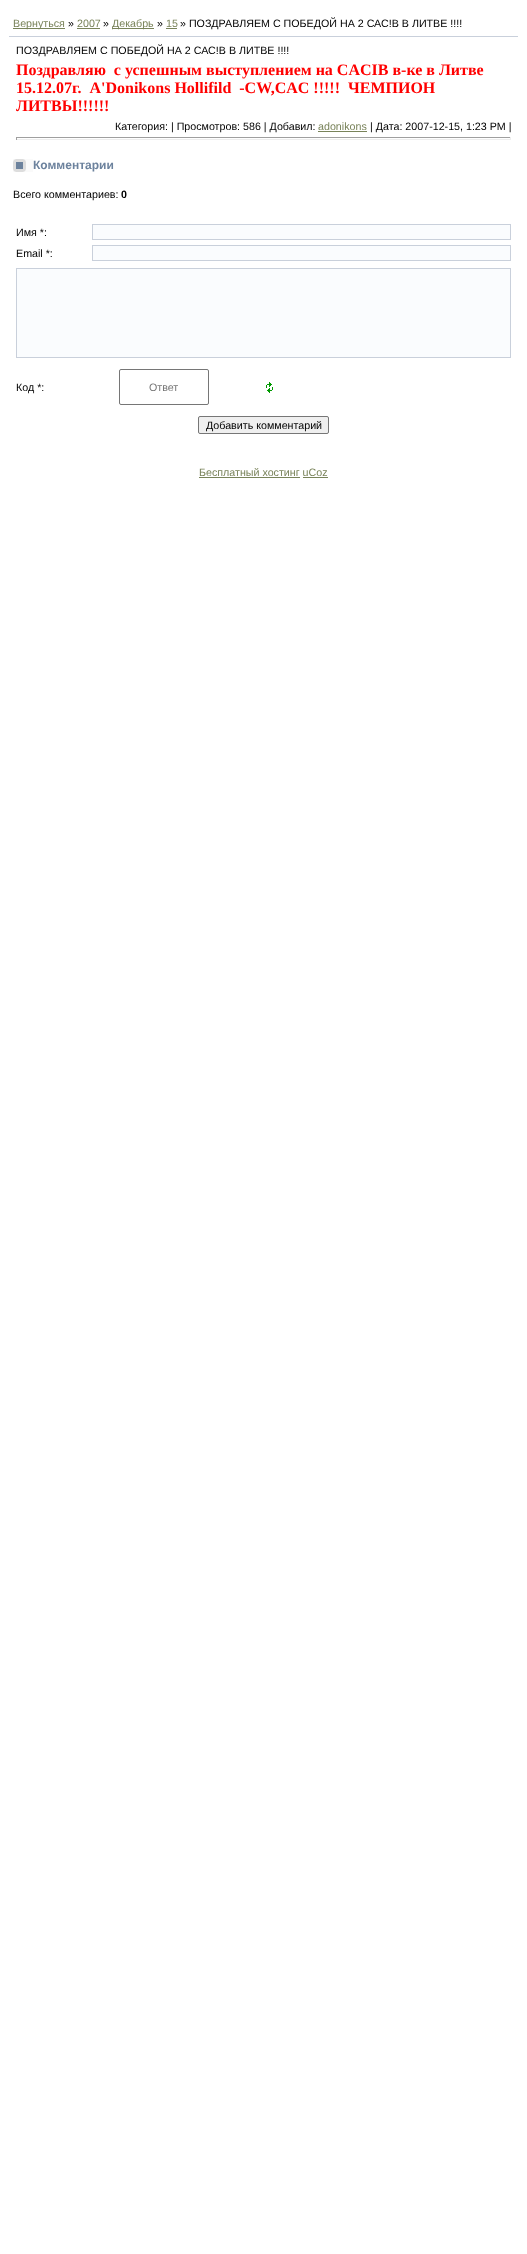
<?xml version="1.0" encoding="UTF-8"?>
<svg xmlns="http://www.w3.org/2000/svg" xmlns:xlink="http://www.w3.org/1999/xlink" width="527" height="2254">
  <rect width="100%" height="100%" fill="#ffffff" />
  <rect x="13" y="28" width="52" height="1" fill="#79835a" />
  <rect x="77" y="28" width="23" height="1" fill="#79835a" />
  <rect x="112" y="28" width="42" height="1" fill="#79835a" />
  <rect x="166" y="28" width="11" height="1" fill="#79835a" />
  <rect x="9" y="36" width="509" height="1" fill="#c9d0db" />
  <rect x="318" y="131" width="49" height="1" fill="#79835a" />
  <rect x="16" y="137" width="495" height="1" fill="#9f9f9f" />
  <rect x="510" y="137" width="1" height="3" fill="#eeeeee" />
  <rect x="16" y="139" width="495" height="1" fill="#eeeeee" />
  <rect x="16" y="137" width="1" height="3" fill="#9f9f9f" />
  <image x="13" y="159" width="20" height="13" xlink:href="image1.png" />
  <rect x="92.5" y="224.5" width="418" height="15" fill="#fafcfe" stroke="#c9d0db" />
  <rect x="92.5" y="245.5" width="418" height="15" fill="#fafcfe" stroke="#c9d0db" />
  <rect x="16.5" y="268.5" width="494" height="89" fill="#fafcfe" stroke="#c9d0db" />
  <rect x="119.5" y="369.5" width="89" height="35" rx="1.5" fill="none" stroke="#767676" />
  <image x="266" y="382" width="7" height="11" xlink:href="image2.png" />
  <rect x="198.5" y="416.5" width="130" height="17" rx="1.5" fill="#efefef" stroke="#767676" />
  <rect x="199" y="477" width="101" height="1" fill="#79835a" />
  <rect x="303" y="477" width="25" height="1" fill="#79835a" />
  <text x="13" y="27" style="font-family: Liberation Sans; font-size: 10.7px; fill: #79835a">Вернуться</text>
  <text x="68" y="27" style="font-family: Liberation Sans; font-size: 10.7px; fill: #000000">»</text>
  <text x="77" y="27" style="font-family: Liberation Sans; font-size: 10.7px; fill: #79835a">2007</text>
  <text x="103" y="27" style="font-family: Liberation Sans; font-size: 10.7px; fill: #000000">»</text>
  <text x="112" y="27" style="font-family: Liberation Sans; font-size: 10.7px; fill: #79835a">Декабрь</text>
  <text x="157" y="27" style="font-family: Liberation Sans; font-size: 10.7px; fill: #000000">»</text>
  <text x="166" y="27" style="font-family: Liberation Sans; font-size: 10.7px; fill: #79835a">15</text>
  <text x="180" y="27" style="font-family: Liberation Sans; font-size: 10.7px; fill: #000000">» ПОЗДРАВЛЯЕМ С ПОБЕДОЙ НА 2 САС!В В ЛИТВЕ !!!!</text>
  <text x="16" y="54" style="font-family: Liberation Sans; font-size: 10.7px; fill: #000000">ПОЗДРАВЛЯЕМ С ПОБЕДОЙ НА 2 САС!В В ЛИТВЕ !!!!</text>
  <text x="16" y="75" style="font-family: Liberation Serif; font-size: 16px; font-weight: bold; fill: #ff0000" xml:space="preserve">Поздравляю  с успешным выступлением на CACIB в-ке в Литве</text>
  <text x="16" y="93" style="font-family: Liberation Serif; font-size: 16px; font-weight: bold; fill: #ff0000" xml:space="preserve">15.12.07г.  A'Donikons Hollifild  -CW,CAC !!!!!  ЧЕМПИОН</text>
  <text x="16" y="111" style="font-family: Liberation Serif; font-size: 16px; font-weight: bold; fill: #ff0000">ЛИТВЫ!!!!!!</text>
  <text x="115" y="130" style="font-family: Liberation Sans; font-size: 10.7px; fill: #000000">Категория: | Просмотров: 586 | Добавил:</text>
  <text x="318" y="130" style="font-family: Liberation Sans; font-size: 10.7px; fill: #79835a">adonikons</text>
  <text x="370" y="130" style="font-family: Liberation Sans; font-size: 10.7px; fill: #000000">| Дата: 2007-12-15, 1:23 PM |</text>
  <text x="33" y="169" style="font-family: Liberation Sans; font-size: 12px; font-weight: bold; fill: #6c829d">Комментарии</text>
  <text x="13" y="198" style="font-family: Liberation Sans; font-size: 10.7px; fill: #000000">Всего комментариев:</text>
  <text x="121" y="198" style="font-family: Liberation Sans; font-size: 10.7px; font-weight: bold; fill: #000000">0</text>
  <text x="16" y="236" style="font-family: Liberation Sans; font-size: 10.7px; fill: #000000">Имя *:</text>
  <text x="16" y="257" style="font-family: Liberation Sans; font-size: 10.7px; fill: #000000">Email *:</text>
  <text x="16" y="391" style="font-family: Liberation Sans; font-size: 10.7px; fill: #000000">Код *:</text>
  <text x="149" y="391" style="font-family: Liberation Sans; font-size: 10.7px; fill: #757575">Ответ</text>
  <text x="206" y="429" style="font-family: Liberation Sans; font-size: 10.7px; fill: #000000">Добавить комментарий</text>
  <text x="199" y="476" style="font-family: Liberation Sans; font-size: 10.7px; fill: #79835a">Бесплатный хостинг uCoz</text>
</svg>
